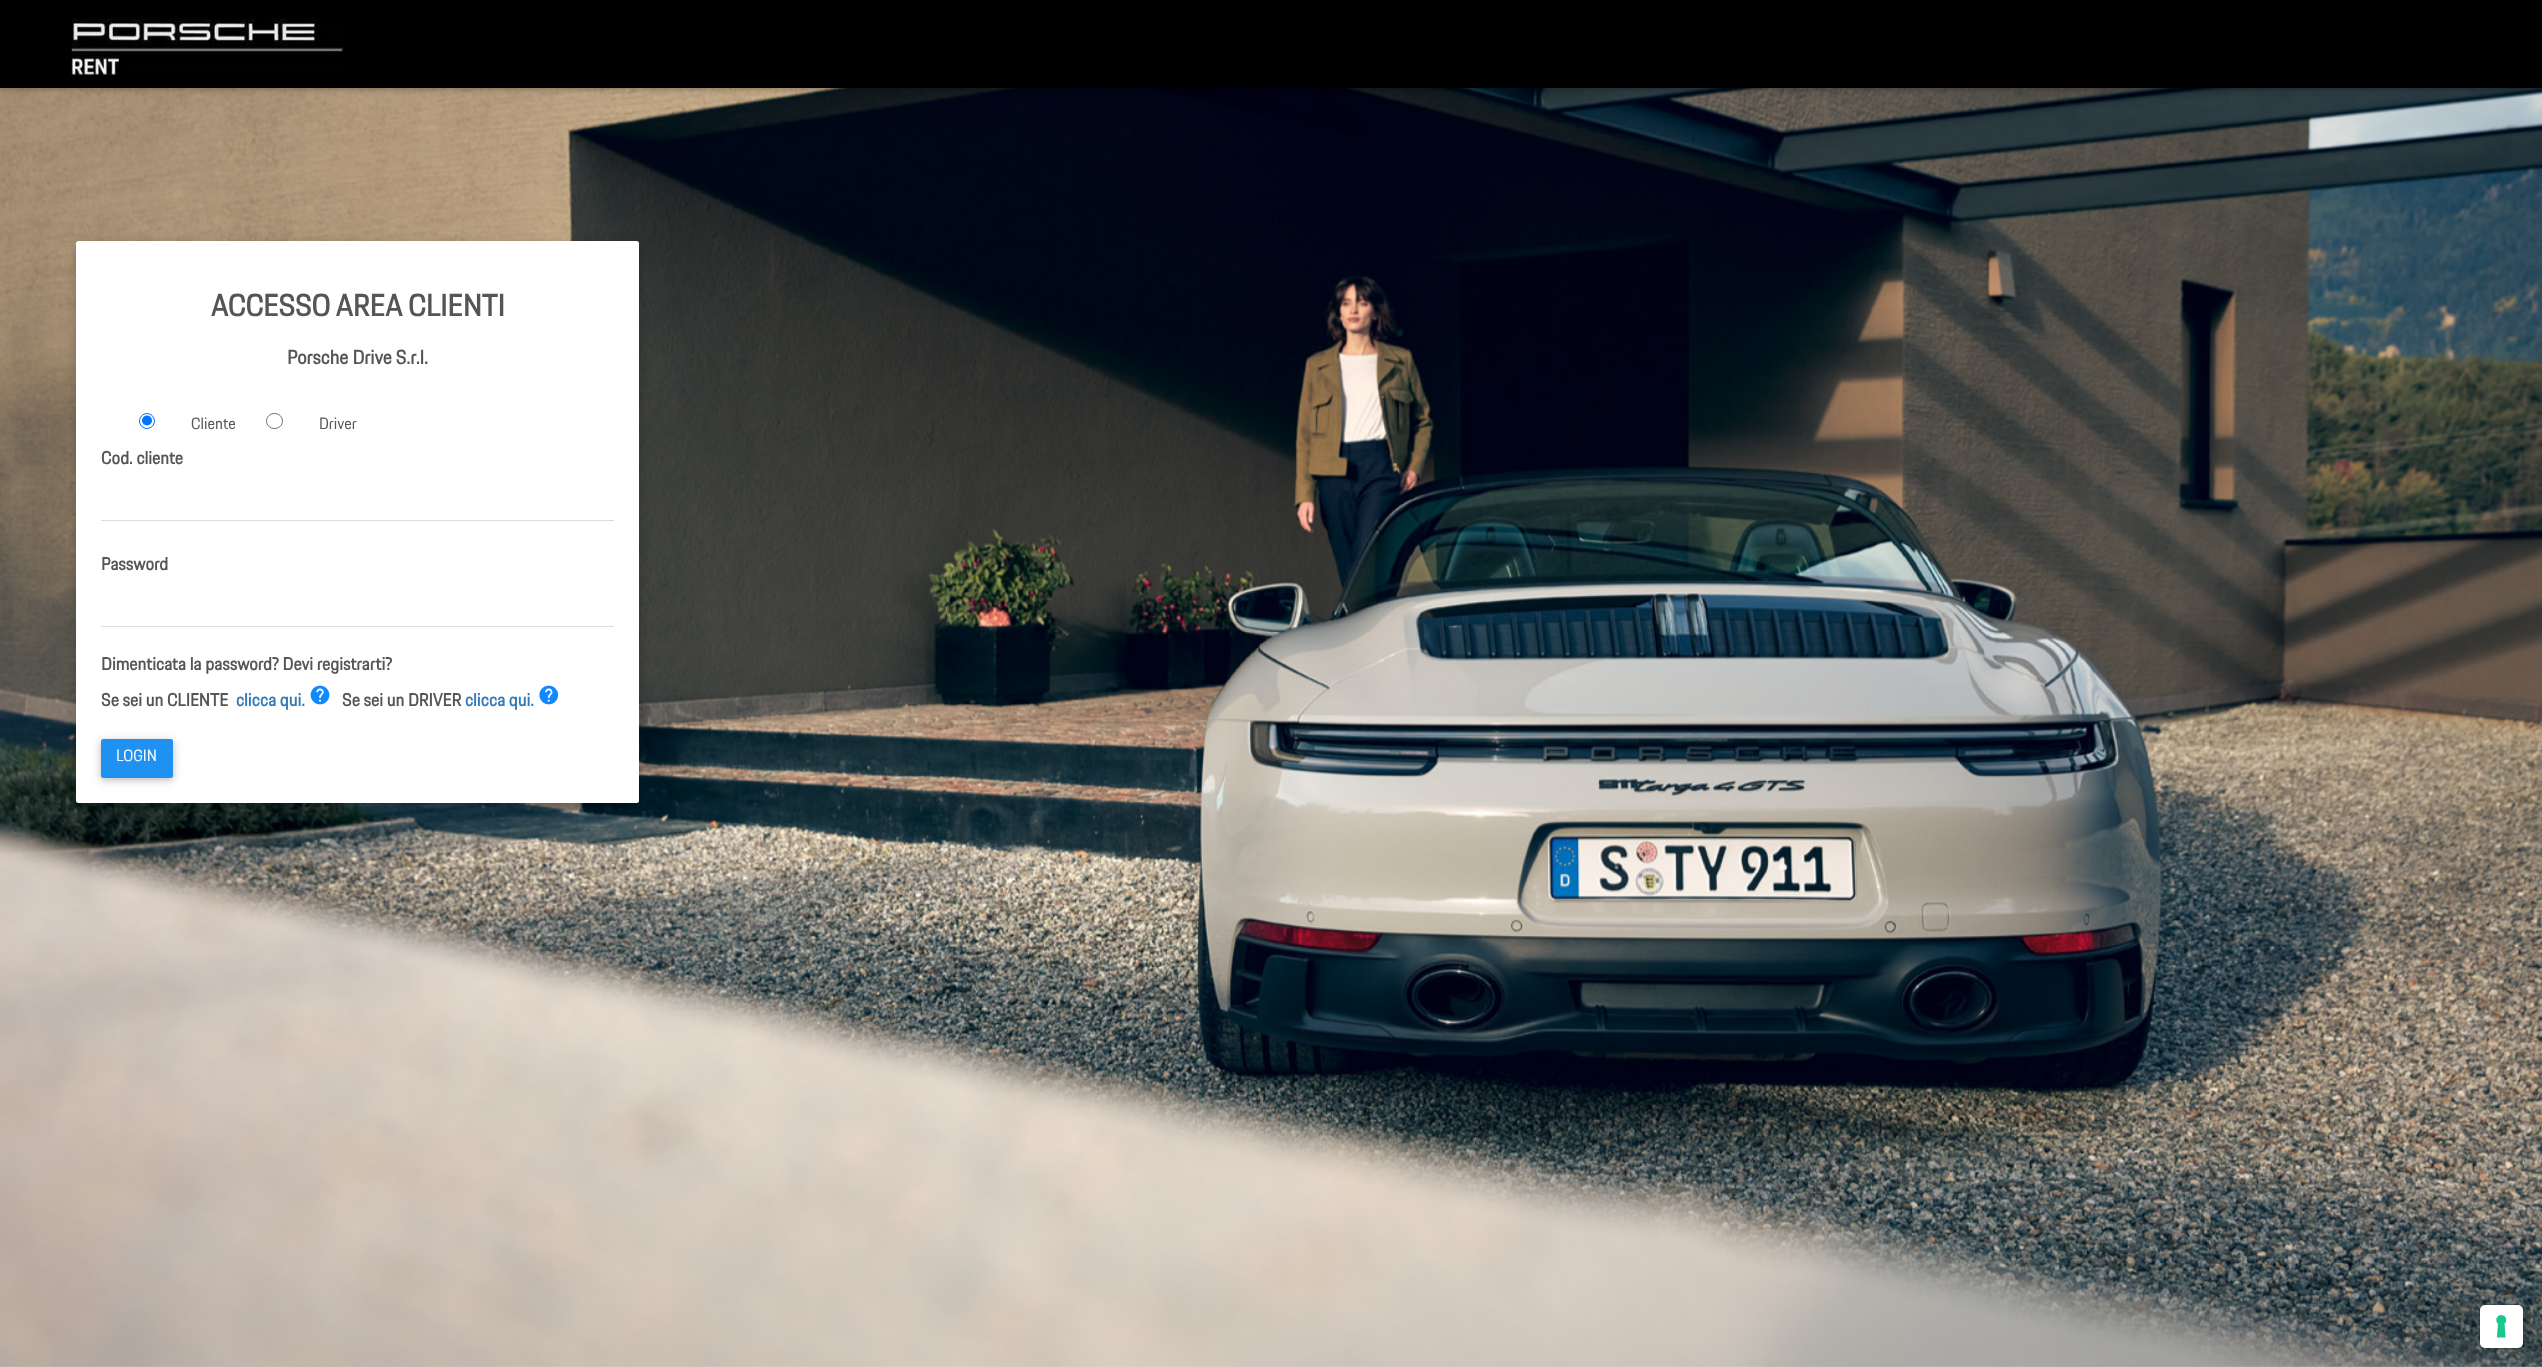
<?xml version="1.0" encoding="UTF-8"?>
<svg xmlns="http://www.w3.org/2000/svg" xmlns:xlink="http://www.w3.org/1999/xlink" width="2542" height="1367">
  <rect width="100%" height="100%" fill="#ffffff" />
  <image x="0" y="88" width="2542" height="1279" xlink:href="image1.png" />
  <rect y="1" width="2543" height="88" fill="#000000" fill-opacity="0.3" filter="blur(3px)" />
  <rect width="2542" height="88" fill="#000000" />
  <image x="71" y="18" width="275" height="57" xlink:href="image2.png" />
  <image x="76" y="204" width="1070" height="599" xlink:href="image3.png" />
  <rect x="76" y="244" width="563" height="561" rx="2.5" fill="#000000" fill-opacity="0.2" filter="blur(6px)" />
  <rect x="76" y="241" width="563" height="562" rx="2.5" fill="#ffffff" />
  <circle cx="147" cy="421" r="7.5" fill="none" stroke="#0075ff" />
  <circle cx="147" cy="420.5" r="5" fill="#0075ff" />
  <rect x="266.5" y="413.5" width="16" height="15" rx="7.5" fill="none" stroke="#767676" />
  <rect x="101" y="520" width="513" height="1" fill="#dddddd" />
  <rect x="101" y="626" width="513" height="1" fill="#dddddd" />
  <image x="310" y="685" width="20" height="20" xlink:href="image4.png" />
  <image x="539" y="685" width="20" height="20" xlink:href="image5.png" />
  <rect x="101" y="741" width="72" height="39" rx="2.5" fill="#000000" fill-opacity="0.12" filter="blur(6px)" />
  <rect x="101" y="741" width="72" height="39" rx="2.5" fill="#000000" fill-opacity="0.16" filter="blur(3px)" />
  <rect x="101" y="739" width="72" height="39" rx="2.5" fill="#1f91f3" />
  <rect x="2479.5" y="1304.5" width="44" height="44" rx="5.5" fill="none" stroke="#000000" stroke-opacity="0.15" />
  <rect x="2480" y="1305" width="43" height="43" rx="5" fill="#ffffff" />
  <image x="2496" y="1315" width="11" height="23" xlink:href="image6.png" />
  <text x="211" y="316" style="font-family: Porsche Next; font-size: 30px; font-weight: bold; fill: #555555">ACCESSO AREA CLIENTI</text>
  <text x="287" y="364" style="font-family: Porsche Next; font-size: 19.25px; font-weight: bold; fill: #555555">Porsche Drive S.r.l.</text>
  <text x="191" y="429" style="font-family: Porsche Next; font-size: 16px; fill: #555555">Cliente</text>
  <text x="319" y="429" style="font-family: Porsche Next; font-size: 16px; fill: #555555">Driver</text>
  <text x="101" y="464" style="font-family: Porsche Next; font-size: 17.5px; font-weight: bold; fill: #555555">Cod. cliente</text>
  <text x="101" y="570" style="font-family: Porsche Next; font-size: 17.5px; font-weight: bold; fill: #555555">Password</text>
  <text x="101" y="670" style="font-family: Porsche Next; font-size: 17.5px; font-weight: bold; fill: #555555">Dimenticata la password? Devi registrarti?</text>
  <text x="101" y="706" style="font-family: Porsche Next; font-size: 17.5px; font-weight: bold; fill: #555555">Se sei un CLIENTE</text>
  <text x="236" y="706" style="font-family: Porsche Next; font-size: 17.5px; font-weight: bold; fill: #337ab7">clicca qui.</text>
  <text x="342" y="706" style="font-family: Porsche Next; font-size: 17.5px; font-weight: bold; fill: #555555">Se sei un DRIVER</text>
  <text x="465" y="706" style="font-family: Porsche Next; font-size: 17.5px; font-weight: bold; fill: #337ab7">clicca qui.</text>
  <text x="116" y="761" style="font-family: Porsche Next; font-size: 16px; fill: #ffffff">LOGIN</text>
</svg>
